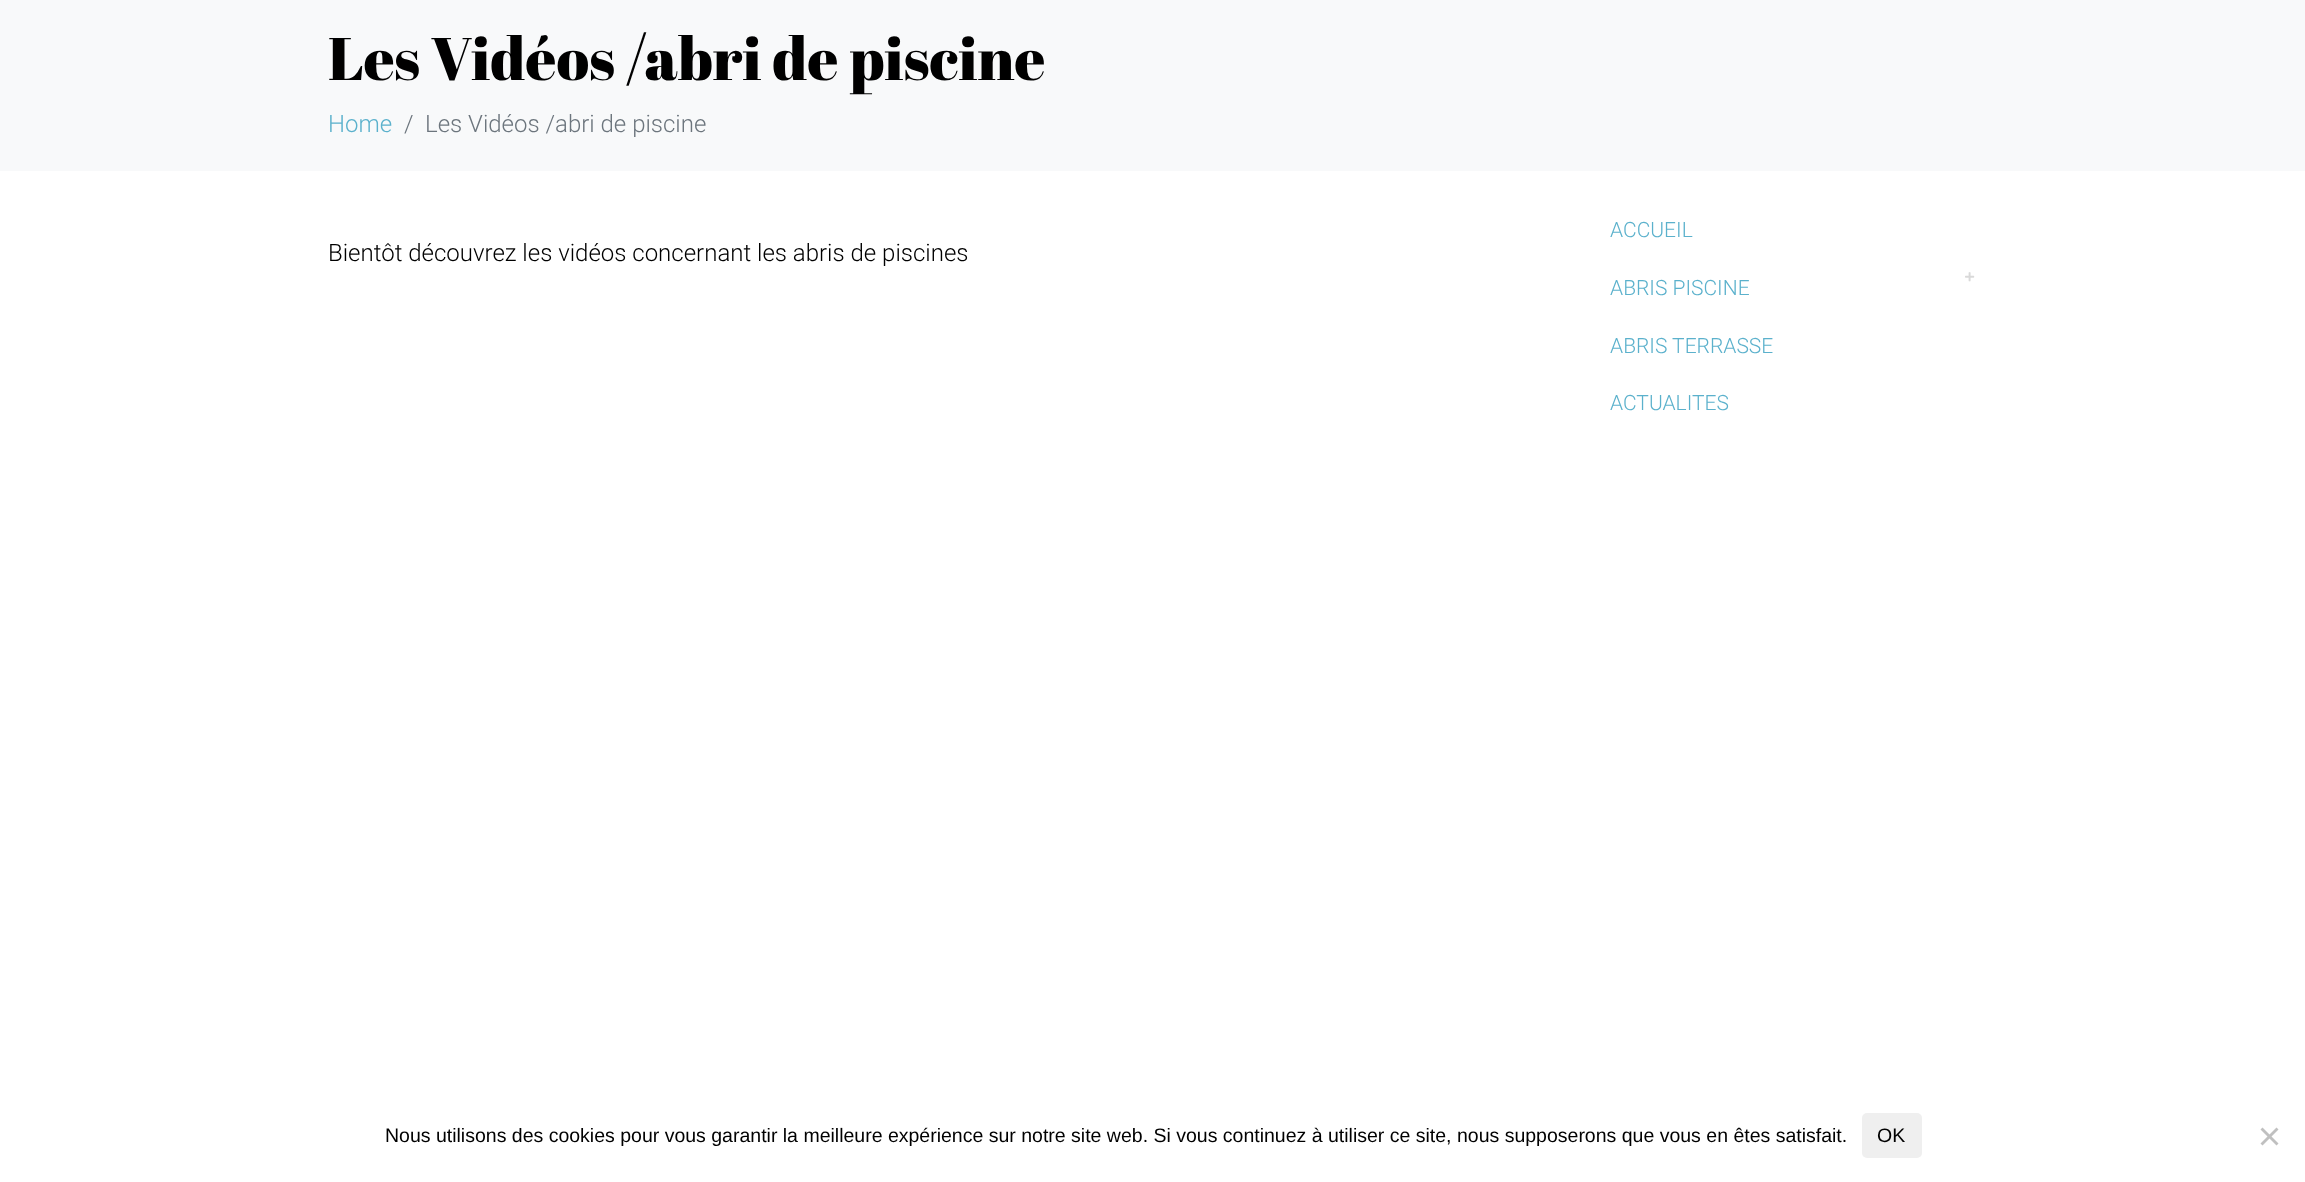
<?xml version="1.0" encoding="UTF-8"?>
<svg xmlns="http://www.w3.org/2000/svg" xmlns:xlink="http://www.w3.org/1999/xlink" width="2305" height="1182">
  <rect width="100%" height="100%" fill="#ffffff" />
  <rect width="2305" height="171" fill="#f8f9fa" />
  <image x="1965" y="272" width="10" height="10" xlink:href="image1.png" />
  <rect x="1862" y="1113" width="60" height="45" rx="5" fill="#efefef" />
  <path d="M 2276.5 1127.5 l 2 2 l -16 16 l -2 -2 z" fill="#c0c0c0" />
  <path d="M 2260.5 1129.5 l 2 -2 l 16 16 l -2 2 z" fill="#c0c0c0" />
  <text x="328" y="80" style="font-family: Abril Fatface; font-size: 60px; fill: #000000">Les Vidéos /abri de piscine</text>
  <text x="328" y="132" style="font-family: Roboto; font-size: 24px; font-weight: 300; fill: #5bb1cc">Home</text>
  <text x="404" y="132" style="font-family: Roboto; font-size: 24px; font-weight: 300; fill: #6c757d">/</text>
  <text x="425" y="132" style="font-family: Roboto; font-size: 24px; font-weight: 300; fill: #6c757d">Les Vidéos /abri de piscine</text>
  <text x="328" y="261" style="font-family: Roboto; font-size: 24px; font-weight: 300; fill: #000000">Bientôt découvrez les vidéos concernant les abris de piscines</text>
  <text x="1610" y="237" style="font-family: Roboto; font-size: 21px; font-weight: 300; fill: #5bb1cc">ACCUEIL</text>
  <text x="1610" y="295" style="font-family: Roboto; font-size: 21px; font-weight: 300; fill: #5bb1cc">ABRIS PISCINE</text>
  <text x="1610" y="353" style="font-family: Roboto; font-size: 21px; font-weight: 300; fill: #5bb1cc">ABRIS TERRASSE</text>
  <text x="1610" y="410" style="font-family: Roboto; font-size: 21px; font-weight: 300; fill: #5bb1cc">ACTUALITES</text>
  <text x="385" y="1142" style="font-family: Liberation Sans; font-size: 19.5px; fill: #000000">Nous utilisons des cookies pour vous garantir la meilleure expérience sur notre site web. Si vous continuez à utiliser ce site, nous supposerons que vous en êtes satisfait.</text>
  <text x="1877" y="1142" style="font-family: Liberation Sans; font-size: 19.5px; fill: #000000">OK</text>
</svg>
